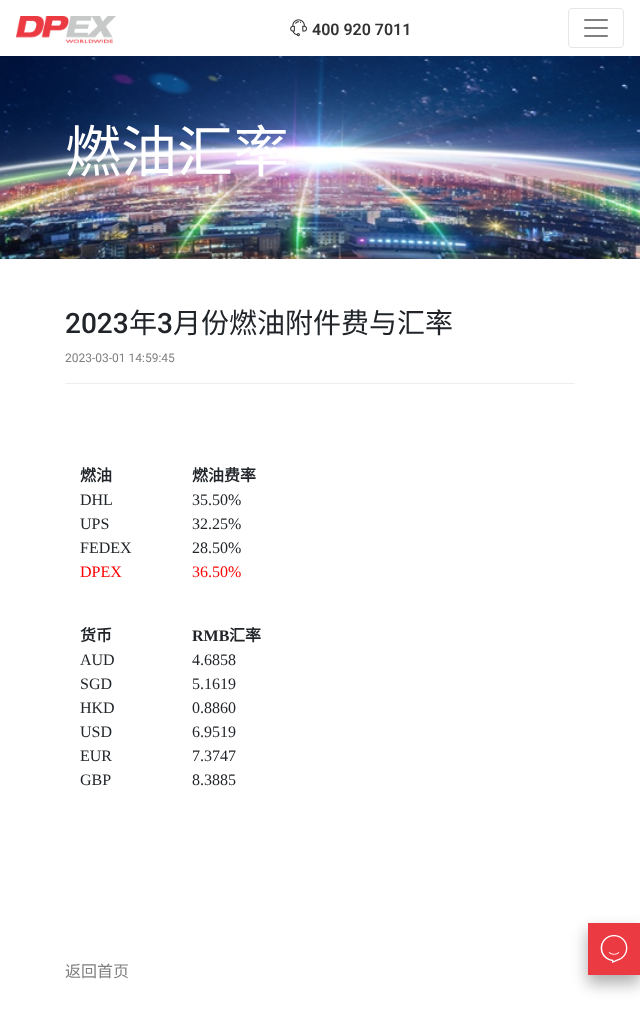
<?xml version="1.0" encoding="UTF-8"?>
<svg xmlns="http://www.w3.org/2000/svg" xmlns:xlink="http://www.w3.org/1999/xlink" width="640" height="1015">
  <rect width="100%" height="100%" fill="#ffffff" />
  <image x="16" y="16" width="100" height="28" xlink:href="image1.png" />
  <image x="290" y="19" width="17" height="18" xlink:href="image2.png" />
  <rect x="568.5" y="8.5" width="55" height="39" rx="3.5" fill="none" stroke="#e6e6e6" />
  <image x="584" y="19" width="24" height="18" xlink:href="image3.png" />
  <image x="0" y="56" width="640" height="203" xlink:href="image4.png" />
  <rect x="65" y="383" width="510" height="1" fill="#eeeeee" />
  <rect x="588" y="931" width="52" height="52" fill="#000000" fill-opacity="0.15" filter="blur(8px)" />
  <rect x="588" y="931" width="52" height="52" fill="#000000" fill-opacity="0.2" filter="blur(8px)" />
  <rect x="588" y="923" width="52" height="52" fill="#ec3a43" />
  <image x="600" y="935" width="28" height="28" xlink:href="image5.png" />
  <text x="312" y="35" style="font-family: Roboto; font-size: 16px; font-weight: 600; fill: #333333">400 920 7011</text>
  <text x="65" y="172" style="font-family: Noto Sans CJK SC; font-size: 56px; fill: #ffffff">燃油汇率</text>
  <text x="65" y="333" style="font-family: Roboto; font-size: 28px; font-weight: 500; fill: #212529">2023</text>
  <text x="129" y="333" style="font-family: Noto Sans CJK SC; font-size: 28px; fill: #212529">年</text>
  <text x="157" y="333" style="font-family: Roboto; font-size: 28px; font-weight: 500; fill: #212529">3</text>
  <text x="173" y="333" style="font-family: Noto Sans CJK SC; font-size: 28px; fill: #212529">月份燃油附件费与汇率</text>
  <text x="65" y="362" style="font-family: Roboto; font-size: 12px; fill: #808080">2023-03-01 14:59:45</text>
  <text x="80" y="481" style="font-family: Noto Sans CJK SC; font-size: 16px; font-weight: bold; fill: #212529">燃油</text>
  <text x="192" y="481" style="font-family: Noto Sans CJK SC; font-size: 16px; font-weight: bold; fill: #212529">燃油费率</text>
  <text x="80" y="505" style="font-family: Liberation Serif; font-size: 16px; fill: #212529">DHL</text>
  <text x="192" y="505" style="font-family: Liberation Serif; font-size: 16px; fill: #212529">35.50%</text>
  <text x="80" y="529" style="font-family: Liberation Serif; font-size: 16px; fill: #212529">UPS</text>
  <text x="192" y="529" style="font-family: Liberation Serif; font-size: 16px; fill: #212529">32.25%</text>
  <text x="80" y="553" style="font-family: Liberation Serif; font-size: 16px; fill: #212529">FEDEX</text>
  <text x="192" y="553" style="font-family: Liberation Serif; font-size: 16px; fill: #212529">28.50%</text>
  <text x="80" y="577" style="font-family: Liberation Serif; font-size: 16px; fill: #ff0000">DPEX</text>
  <text x="192" y="577" style="font-family: Liberation Serif; font-size: 16px; fill: #ff0000">36.50%</text>
  <text x="80" y="641" style="font-family: Noto Sans CJK SC; font-size: 16px; font-weight: bold; fill: #212529">货币</text>
  <text x="192" y="641" style="font-family: Liberation Serif; font-size: 16px; font-weight: bold; fill: #212529">RMB</text>
  <text x="229" y="641" style="font-family: Noto Sans CJK SC; font-size: 16px; font-weight: bold; fill: #212529">汇率</text>
  <text x="80" y="665" style="font-family: Liberation Serif; font-size: 16px; fill: #212529">AUD</text>
  <text x="192" y="665" style="font-family: Liberation Serif; font-size: 16px; fill: #212529">4.6858</text>
  <text x="80" y="689" style="font-family: Liberation Serif; font-size: 16px; fill: #212529">SGD</text>
  <text x="192" y="689" style="font-family: Liberation Serif; font-size: 16px; fill: #212529">5.1619</text>
  <text x="80" y="713" style="font-family: Liberation Serif; font-size: 16px; fill: #212529">HKD</text>
  <text x="192" y="713" style="font-family: Liberation Serif; font-size: 16px; fill: #212529">0.8860</text>
  <text x="80" y="737" style="font-family: Liberation Serif; font-size: 16px; fill: #212529">USD</text>
  <text x="192" y="737" style="font-family: Liberation Serif; font-size: 16px; fill: #212529">6.9519</text>
  <text x="80" y="761" style="font-family: Liberation Serif; font-size: 16px; fill: #212529">EUR</text>
  <text x="192" y="761" style="font-family: Liberation Serif; font-size: 16px; fill: #212529">7.3747</text>
  <text x="80" y="785" style="font-family: Liberation Serif; font-size: 16px; fill: #212529">GBP</text>
  <text x="192" y="785" style="font-family: Liberation Serif; font-size: 16px; fill: #212529">8.3885</text>
  <text x="65" y="977" style="font-family: Noto Sans CJK SC; font-size: 16px; fill: #808080">返回首页</text>
</svg>
